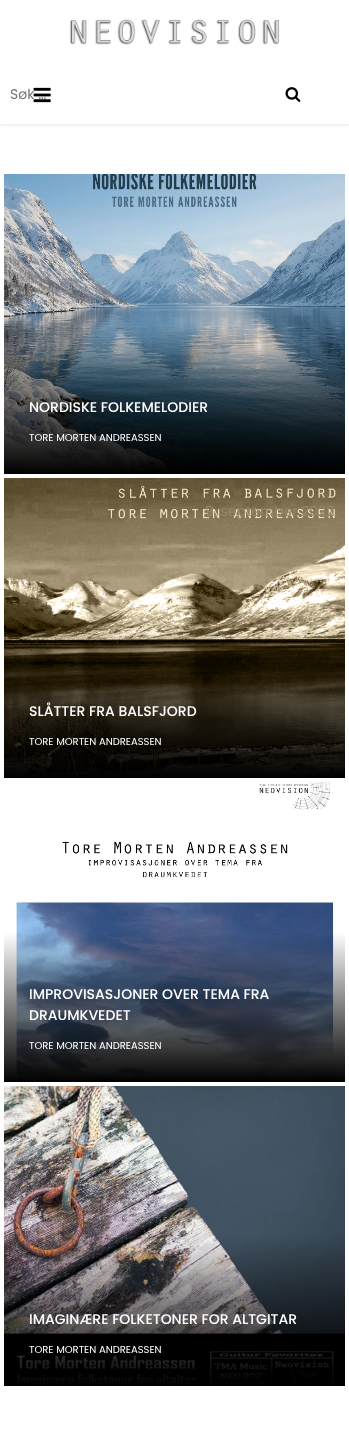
<?xml version="1.0" encoding="UTF-8"?>
<svg xmlns="http://www.w3.org/2000/svg" xmlns:xlink="http://www.w3.org/1999/xlink" width="349" height="1456">
  <defs>
    <clipPath id="clip1"><rect x="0" y="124" width="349" height="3" /></clipPath>
  </defs>
  <rect width="100%" height="100%" fill="#ffffff" />
  <image x="69" y="19" width="211" height="26" xlink:href="image1.png" />
  <g clip-path="url(#clip1)">
    <rect y="66" width="349" height="60" fill="#000000" fill-opacity="0.07" filter="blur(1.5px)" />
  </g>
  <image x="285" y="87" width="16" height="15" xlink:href="image3.png" />
  <image x="4" y="174" width="341" height="300" xlink:href="image4.png" />
  <image x="4" y="478" width="341" height="300" xlink:href="image5.png" />
  <image x="4" y="782" width="341" height="300" xlink:href="image6.png" />
  <image x="4" y="1086" width="341" height="300" xlink:href="image7.png" />
  <text x="10" y="99" style="font-family: Poppins; font-size: 14px; fill: #757575">Søk …</text>
  <image x="33" y="87" width="18" height="16" xlink:href="image2.png" />
  <text x="29" y="412" style="font-family: Poppins; font-size: 14px; font-weight: 500; fill: #ffffff">NORDISKE FOLKEMELODIER</text>
  <text x="29" y="441" style="font-family: Poppins; font-size: 10px; fill: #ffffff">TORE MORTEN ANDREASSEN</text>
  <text x="205" y="516" style="font-family: Poppins; font-size: 14px; fill: #968768">9. september 2022</text>
  <text x="29" y="716" style="font-family: Poppins; font-size: 14px; font-weight: 500; fill: #ffffff">SLÅTTER FRA BALSFJORD</text>
  <text x="29" y="745" style="font-family: Poppins; font-size: 10px; fill: #ffffff">TORE MORTEN ANDREASSEN</text>
  <text x="29" y="999" style="font-family: Poppins; font-size: 14px; font-weight: 500; fill: #ffffff">IMPROVISASJONER OVER TEMA FRA</text>
  <text x="29" y="1020" style="font-family: Poppins; font-size: 14px; font-weight: 500; fill: #ffffff">DRAUMKVEDET</text>
  <text x="29" y="1049" style="font-family: Poppins; font-size: 10px; fill: #ffffff">TORE MORTEN ANDREASSEN</text>
  <text x="29" y="1324" style="font-family: Poppins; font-size: 14px; font-weight: 500; fill: #ffffff">IMAGINÆRE FOLKETONER FOR ALTGITAR</text>
  <text x="29" y="1353" style="font-family: Poppins; font-size: 10px; fill: #ffffff">TORE MORTEN ANDREASSEN</text>
</svg>
